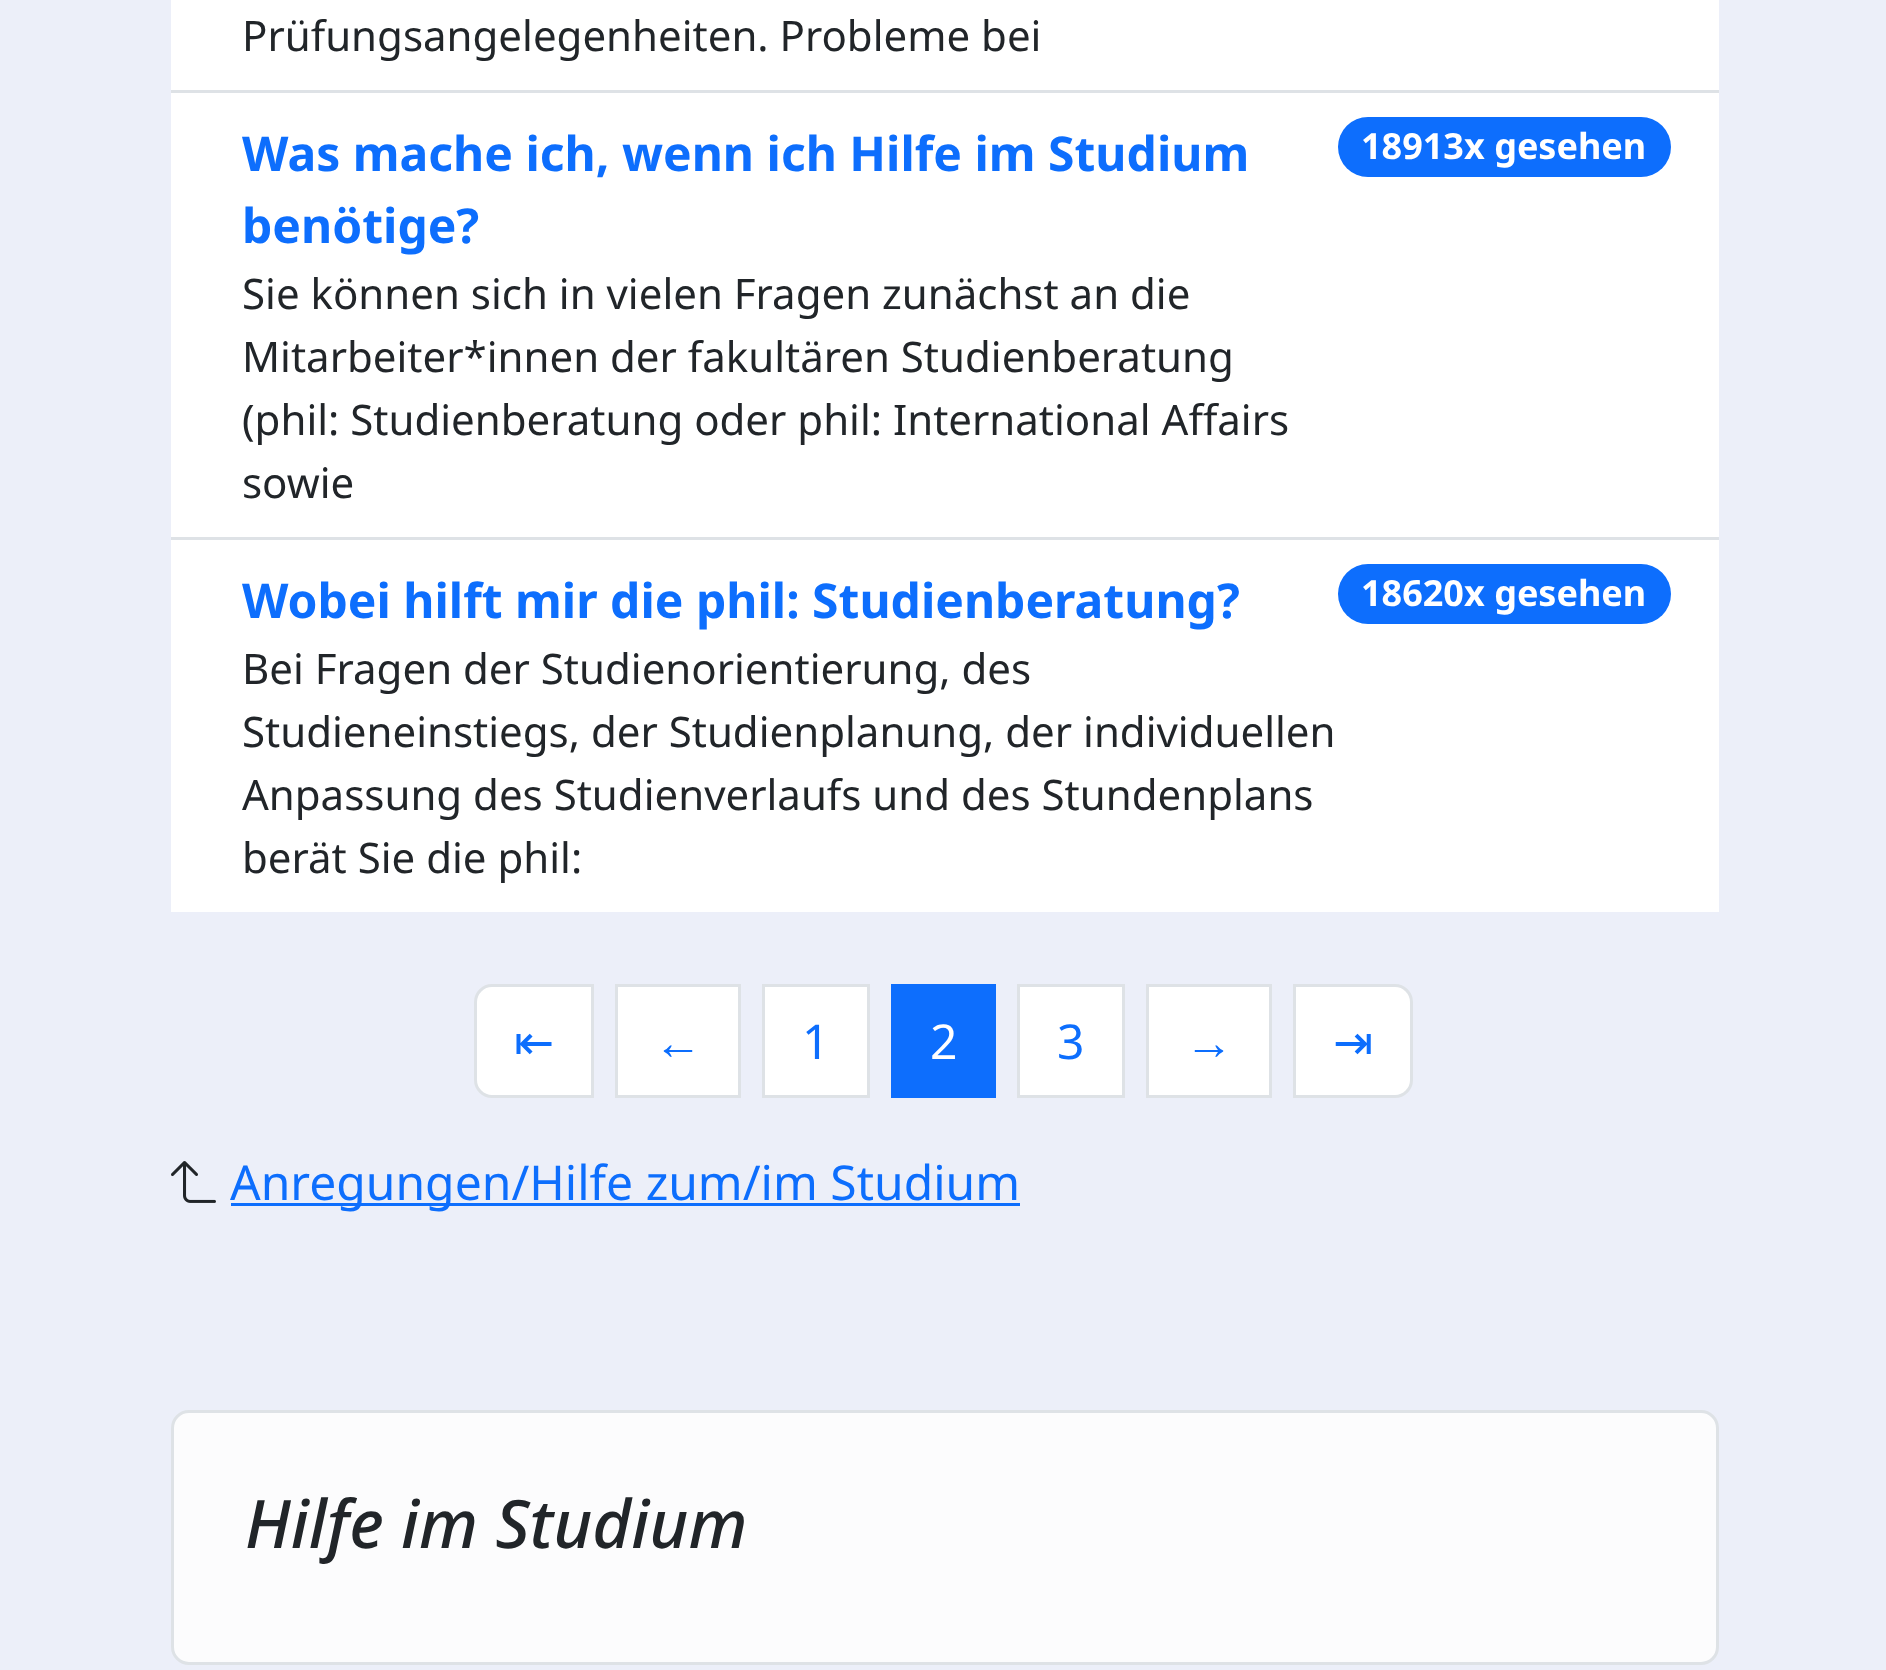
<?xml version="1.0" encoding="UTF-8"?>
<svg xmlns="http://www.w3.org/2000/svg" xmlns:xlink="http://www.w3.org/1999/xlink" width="1886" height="1670">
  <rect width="100%" height="100%" fill="#eceff9" />
  <rect x="171" width="1548" height="90" fill="#ffffff" />
  <rect x="171" y="90" width="1548" height="3" fill="#dee2e6" />
  <rect x="171" y="93" width="1548" height="444" fill="#ffffff" />
  <rect x="171" y="537" width="1548" height="3" fill="#dee2e6" />
  <rect x="1338" y="117" width="333" height="60" rx="30" fill="#0d6efd" />
  <rect x="171" y="540" width="1548" height="372" fill="#ffffff" />
  <rect x="1338" y="564" width="333" height="60" rx="30" fill="#0d6efd" />
  <path d="M 492 985.5 h 100.5 v 111 h -100.5 c -9 0 -16.5 -7.5 -16.5 -16.5 v -78 c 0 -9 7.5 -16.5 16.5 -16.5 z" fill="#ffffff" stroke="#dee2e6" stroke-width="3" />
  <rect x="616.5" y="985.5" width="123" height="111" fill="#ffffff" stroke="#dee2e6" stroke-width="3" />
  <rect x="763.5" y="985.5" width="105" height="111" fill="#ffffff" stroke="#dee2e6" stroke-width="3" />
  <rect x="891" y="984" width="105" height="114" fill="#0d6efd" />
  <rect x="1018.5" y="985.5" width="105" height="111" fill="#ffffff" stroke="#dee2e6" stroke-width="3" />
  <rect x="1147.5" y="985.5" width="123" height="111" fill="#ffffff" stroke="#dee2e6" stroke-width="3" />
  <path d="M 1294.5 985.5 h 100.5 c 9 0 16.5 7.5 16.5 16.5 v 78 c 0 9 -7.5 16.5 -16.5 16.5 h -100.5 z" fill="#ffffff" stroke="#dee2e6" stroke-width="3" />
  <image x="171" y="1161" width="45" height="42" xlink:href="image1.png" />
  <rect x="231" y="1203" width="789" height="3" fill="#0d6efd" />
  <rect x="172.5" y="1411.5" width="1545" height="252" rx="16.5" fill="#fcfcfd" stroke="#dee2e6" stroke-width="3" />
  <text x="242" y="51" style="font-family: Noto Sans; font-size: 42px; fill: #212529">Prüfungsangelegenheiten. Probleme bei</text>
  <text x="242" y="171" style="font-family: Noto Sans; font-size: 48px; font-weight: bold; fill: #0d6efd">Was mache ich, wenn ich Hilfe im Studium</text>
  <text x="242" y="243" style="font-family: Noto Sans; font-size: 48px; font-weight: bold; fill: #0d6efd">benötige?</text>
  <text x="242" y="309" style="font-family: Noto Sans; font-size: 42px; fill: #212529">Sie können sich in vielen Fragen zunächst an die</text>
  <text x="242" y="372" style="font-family: Noto Sans; font-size: 42px; fill: #212529">Mitarbeiter*innen der fakultären Studienberatung</text>
  <text x="242" y="435" style="font-family: Noto Sans; font-size: 42px; fill: #212529">(phil: Studienberatung oder phil: International Affairs</text>
  <text x="242" y="498" style="font-family: Noto Sans; font-size: 42px; fill: #212529">sowie</text>
  <text x="1361" y="159" style="font-family: Noto Sans; font-size: 36px; font-weight: bold; fill: #ffffff">18913x gesehen</text>
  <text x="242" y="618" style="font-family: Noto Sans; font-size: 48px; font-weight: bold; fill: #0d6efd">Wobei hilft mir die phil: Studienberatung?</text>
  <text x="242" y="684" style="font-family: Noto Sans; font-size: 42px; fill: #212529">Bei Fragen der Studienorientierung, des</text>
  <text x="242" y="747" style="font-family: Noto Sans; font-size: 42px; fill: #212529">Studieneinstiegs, der Studienplanung, der individuellen</text>
  <text x="242" y="810" style="font-family: Noto Sans; font-size: 42px; fill: #212529">Anpassung des Studienverlaufs und des Stundenplans</text>
  <text x="242" y="873" style="font-family: Noto Sans; font-size: 42px; fill: #212529">berät Sie die phil:</text>
  <text x="1361" y="606" style="font-family: Noto Sans; font-size: 36px; font-weight: bold; fill: #ffffff">18620x gesehen</text>
  <text x="514" y="1059" style="font-family: DejaVu Sans; font-size: 48px; fill: #0d6efd">⇤</text>
  <text x="654" y="1059" style="font-family: Liberation Sans; font-size: 48px; fill: #0d6efd">←</text>
  <text x="802" y="1059" style="font-family: Noto Sans; font-size: 48px; fill: #0d6efd">1</text>
  <text x="930" y="1059" style="font-family: Noto Sans; font-size: 48px; fill: #ffffff">2</text>
  <text x="1057" y="1059" style="font-family: Noto Sans; font-size: 48px; fill: #0d6efd">3</text>
  <text x="1185" y="1059" style="font-family: Liberation Sans; font-size: 48px; fill: #0d6efd">→</text>
  <text x="1333" y="1059" style="font-family: DejaVu Sans; font-size: 48px; fill: #0d6efd">⇥</text>
  <text x="230" y="1200" style="font-family: Noto Sans; font-size: 48px; fill: #0d6efd">Anregungen/Hilfe zum/im Studium</text>
  <text x="245" y="1548" style="font-family: Noto Sans; font-size: 66.75px; font-weight: 500; font-style: italic; fill: #212529">Hilfe im Studium</text>
</svg>
